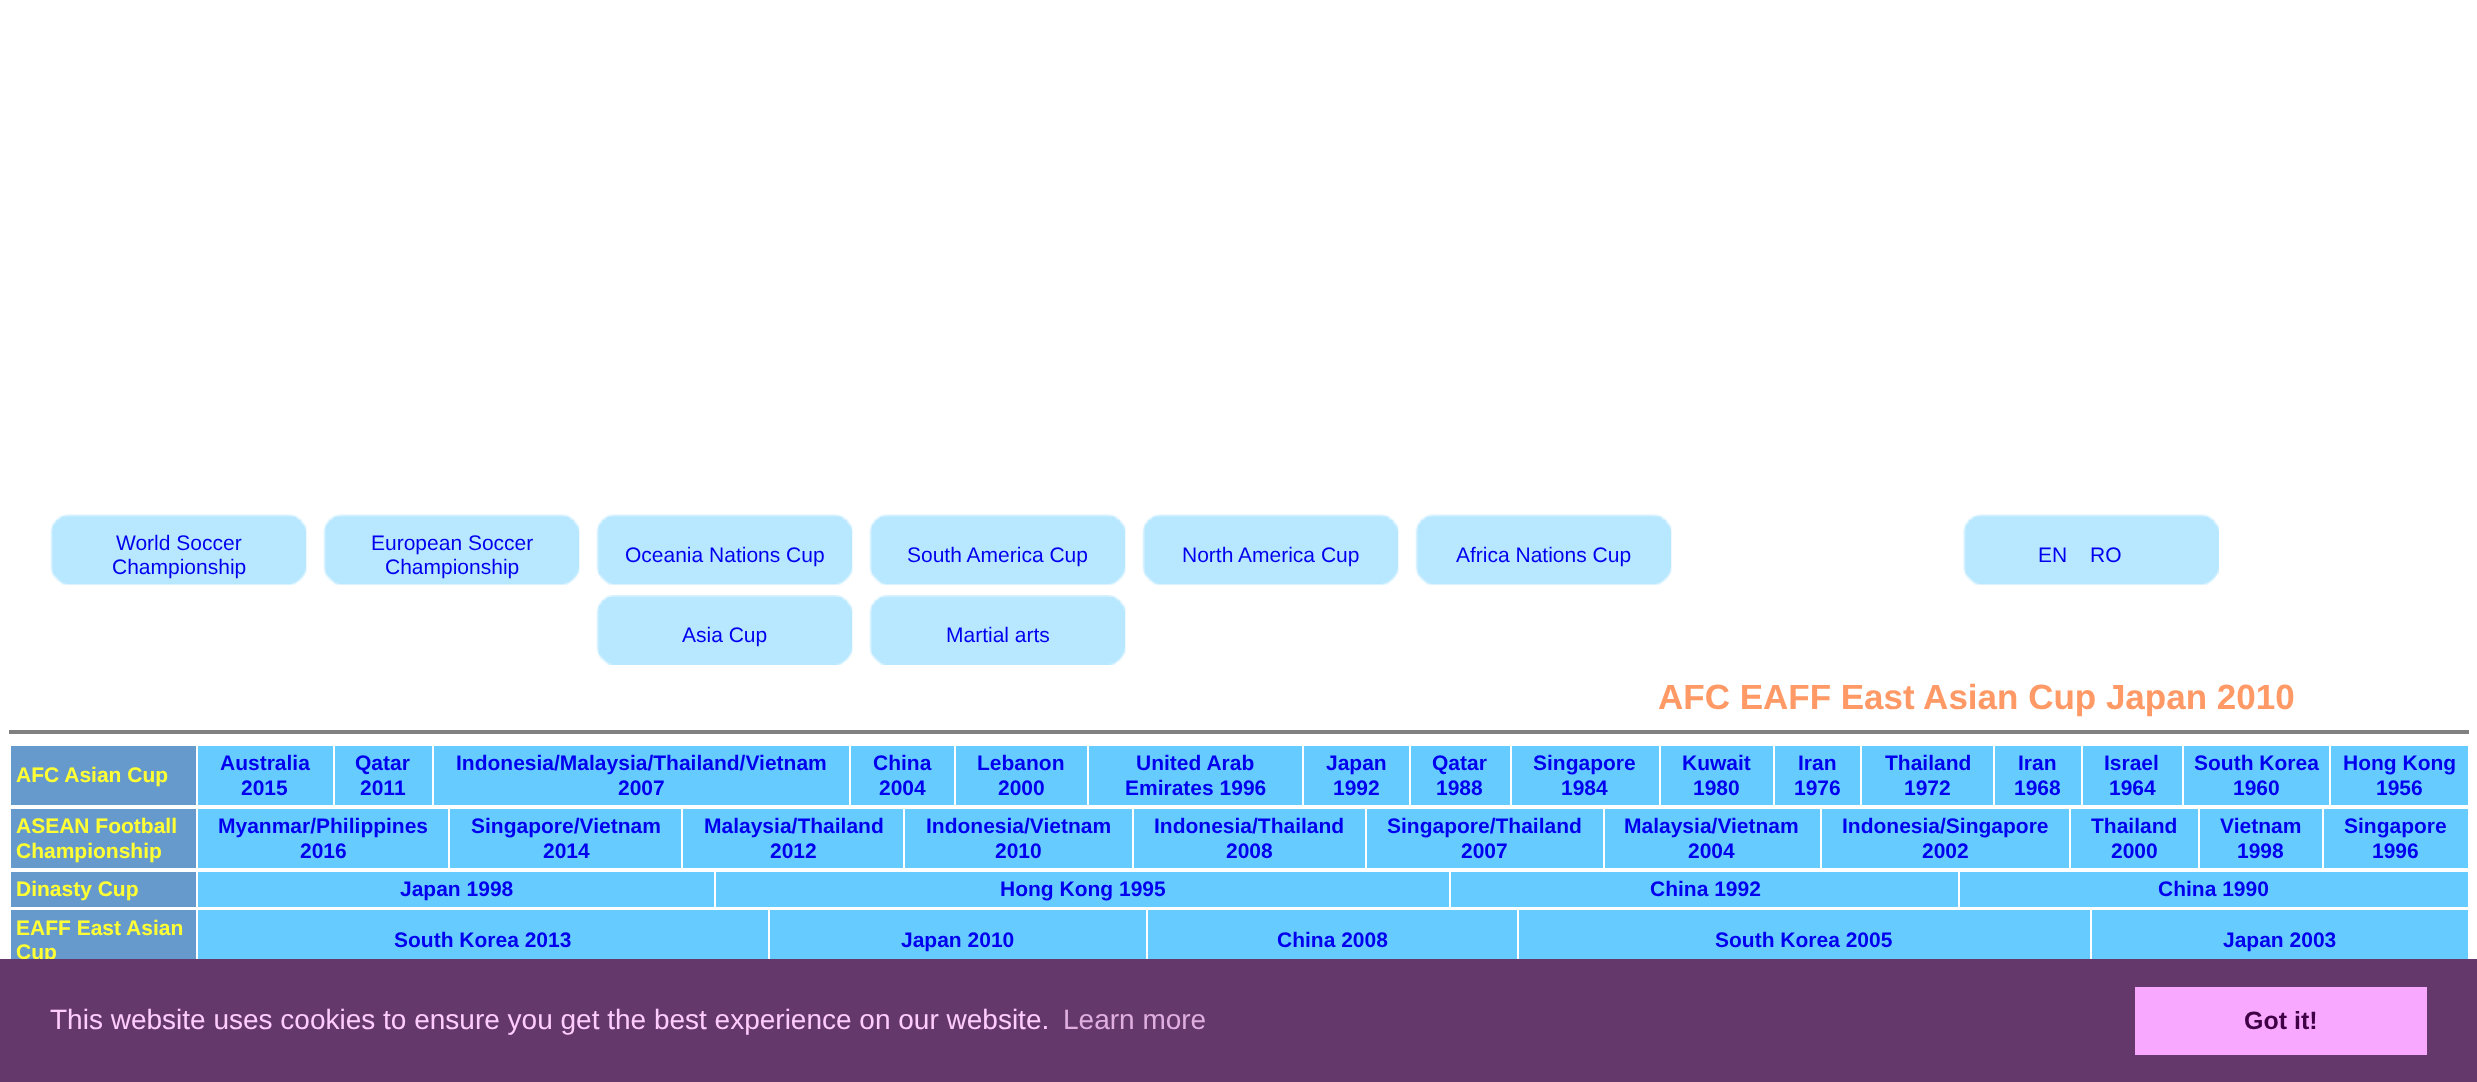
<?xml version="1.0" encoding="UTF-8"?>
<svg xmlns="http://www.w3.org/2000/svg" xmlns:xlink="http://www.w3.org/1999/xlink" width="2477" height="1082">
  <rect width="100%" height="100%" fill="#ffffff" />
  <image x="50" y="514" width="257" height="71" xlink:href="image1.png" />
  <image x="323" y="514" width="257" height="71" xlink:href="image1.png" />
  <image x="596" y="514" width="257" height="71" xlink:href="image1.png" />
  <image x="869" y="514" width="257" height="71" xlink:href="image1.png" />
  <image x="1142" y="514" width="257" height="71" xlink:href="image2.png" />
  <image x="1415" y="514" width="257" height="71" xlink:href="image3.png" />
  <image x="596" y="595" width="257" height="70" xlink:href="image4.png" />
  <image x="869" y="595" width="257" height="70" xlink:href="image4.png" />
  <image x="1963" y="514" width="256" height="71" xlink:href="image5.png" />
  <rect x="9" y="730" width="2460" height="4" fill="#808080" />
  <rect x="11" y="746" width="185" height="59" fill="#6699cc" />
  <rect x="198" y="746" width="135" height="59" fill="#66ccff" />
  <rect x="335" y="746" width="97" height="59" fill="#66ccff" />
  <rect x="434" y="746" width="415" height="59" fill="#66ccff" />
  <rect x="851" y="746" width="103" height="59" fill="#66ccff" />
  <rect x="956" y="746" width="131" height="59" fill="#66ccff" />
  <rect x="1089" y="746" width="213" height="59" fill="#66ccff" />
  <rect x="1304" y="746" width="105" height="59" fill="#66ccff" />
  <rect x="1411" y="746" width="99" height="59" fill="#66ccff" />
  <rect x="1512" y="746" width="147" height="59" fill="#66ccff" />
  <rect x="1661" y="746" width="112" height="59" fill="#66ccff" />
  <rect x="1775" y="746" width="85" height="59" fill="#66ccff" />
  <rect x="1862" y="746" width="131" height="59" fill="#66ccff" />
  <rect x="1995" y="746" width="86" height="59" fill="#66ccff" />
  <rect x="2083" y="746" width="99" height="59" fill="#66ccff" />
  <rect x="2184" y="746" width="145" height="59" fill="#66ccff" />
  <rect x="2331" y="746" width="137" height="59" fill="#66ccff" />
  <rect x="11" y="809" width="185" height="59" fill="#6699cc" />
  <rect x="198" y="809" width="250" height="59" fill="#66ccff" />
  <rect x="450" y="809" width="231" height="59" fill="#66ccff" />
  <rect x="683" y="809" width="220" height="59" fill="#66ccff" />
  <rect x="905" y="809" width="227" height="59" fill="#66ccff" />
  <rect x="1134" y="809" width="231" height="59" fill="#66ccff" />
  <rect x="1367" y="809" width="236" height="59" fill="#66ccff" />
  <rect x="1605" y="809" width="215" height="59" fill="#66ccff" />
  <rect x="1822" y="809" width="247" height="59" fill="#66ccff" />
  <rect x="2071" y="809" width="127" height="59" fill="#66ccff" />
  <rect x="2200" y="809" width="122" height="59" fill="#66ccff" />
  <rect x="2324" y="809" width="144" height="59" fill="#66ccff" />
  <rect x="11" y="872" width="185" height="35" fill="#6699cc" />
  <rect x="198" y="872" width="516" height="35" fill="#66ccff" />
  <rect x="716" y="872" width="733" height="35" fill="#66ccff" />
  <rect x="1451" y="872" width="507" height="35" fill="#66ccff" />
  <rect x="1960" y="872" width="508" height="35" fill="#66ccff" />
  <rect x="11" y="910" width="185" height="49" fill="#6699cc" />
  <rect x="198" y="910" width="570" height="49" fill="#66ccff" />
  <rect x="770" y="910" width="376" height="49" fill="#66ccff" />
  <rect x="1148" y="910" width="369" height="49" fill="#66ccff" />
  <rect x="1519" y="910" width="571" height="49" fill="#66ccff" />
  <rect x="2092" y="910" width="376" height="49" fill="#66ccff" />
  <text x="116" y="550" style="font-family: Liberation Sans; font-size: 21px; fill: #0000ee">World Soccer</text>
  <text x="112" y="574" style="font-family: Liberation Sans; font-size: 21px; fill: #0000ee">Championship</text>
  <text x="371" y="550" style="font-family: Liberation Sans; font-size: 21px; fill: #0000ee">European Soccer</text>
  <text x="385" y="574" style="font-family: Liberation Sans; font-size: 21px; fill: #0000ee">Championship</text>
  <text x="625" y="562" style="font-family: Liberation Sans; font-size: 21px; fill: #0000ee">Oceania Nations Cup</text>
  <text x="907" y="562" style="font-family: Liberation Sans; font-size: 21px; fill: #0000ee">South America Cup</text>
  <text x="1182" y="562" style="font-family: Liberation Sans; font-size: 21px; fill: #0000ee">North America Cup</text>
  <text x="1456" y="562" style="font-family: Liberation Sans; font-size: 21px; fill: #0000ee">Africa Nations Cup</text>
  <text x="682" y="642" style="font-family: Liberation Sans; font-size: 21px; fill: #0000ee">Asia Cup</text>
  <text x="946" y="642" style="font-family: Liberation Sans; font-size: 21px; fill: #0000ee">Martial arts</text>
  <text x="2038" y="562" style="font-family: Liberation Sans; font-size: 21px; fill: #0000ee">EN</text>
  <text x="2090" y="562" style="font-family: Liberation Sans; font-size: 21px; fill: #0000ee">RO</text>
  <text x="1658" y="709" style="font-family: Liberation Sans; font-size: 35px; font-weight: bold; fill: #ff9966">AFC EAFF East Asian Cup Japan 2010</text>
  <text x="16" y="782" style="font-family: Liberation Sans; font-size: 21px; font-weight: bold; fill: #ffff33">AFC Asian Cup</text>
  <text x="220" y="770" style="font-family: Liberation Sans; font-size: 21px; font-weight: bold; fill: #0000ee">Australia</text>
  <text x="241" y="795" style="font-family: Liberation Sans; font-size: 21px; font-weight: bold; fill: #0000ee">2015</text>
  <text x="355" y="770" style="font-family: Liberation Sans; font-size: 21px; font-weight: bold; fill: #0000ee">Qatar</text>
  <text x="360" y="795" style="font-family: Liberation Sans; font-size: 21px; font-weight: bold; fill: #0000ee">2011</text>
  <text x="456" y="770" style="font-family: Liberation Sans; font-size: 21px; font-weight: bold; fill: #0000ee">Indonesia/Malaysia/Thailand/Vietnam</text>
  <text x="618" y="795" style="font-family: Liberation Sans; font-size: 21px; font-weight: bold; fill: #0000ee">2007</text>
  <text x="873" y="770" style="font-family: Liberation Sans; font-size: 21px; font-weight: bold; fill: #0000ee">China</text>
  <text x="879" y="795" style="font-family: Liberation Sans; font-size: 21px; font-weight: bold; fill: #0000ee">2004</text>
  <text x="977" y="770" style="font-family: Liberation Sans; font-size: 21px; font-weight: bold; fill: #0000ee">Lebanon</text>
  <text x="998" y="795" style="font-family: Liberation Sans; font-size: 21px; font-weight: bold; fill: #0000ee">2000</text>
  <text x="1136" y="770" style="font-family: Liberation Sans; font-size: 21px; font-weight: bold; fill: #0000ee">United Arab</text>
  <text x="1125" y="795" style="font-family: Liberation Sans; font-size: 21px; font-weight: bold; fill: #0000ee">Emirates 1996</text>
  <text x="1326" y="770" style="font-family: Liberation Sans; font-size: 21px; font-weight: bold; fill: #0000ee">Japan</text>
  <text x="1333" y="795" style="font-family: Liberation Sans; font-size: 21px; font-weight: bold; fill: #0000ee">1992</text>
  <text x="1432" y="770" style="font-family: Liberation Sans; font-size: 21px; font-weight: bold; fill: #0000ee">Qatar</text>
  <text x="1436" y="795" style="font-family: Liberation Sans; font-size: 21px; font-weight: bold; fill: #0000ee">1988</text>
  <text x="1533" y="770" style="font-family: Liberation Sans; font-size: 21px; font-weight: bold; fill: #0000ee">Singapore</text>
  <text x="1561" y="795" style="font-family: Liberation Sans; font-size: 21px; font-weight: bold; fill: #0000ee">1984</text>
  <text x="1682" y="770" style="font-family: Liberation Sans; font-size: 21px; font-weight: bold; fill: #0000ee">Kuwait</text>
  <text x="1693" y="795" style="font-family: Liberation Sans; font-size: 21px; font-weight: bold; fill: #0000ee">1980</text>
  <text x="1798" y="770" style="font-family: Liberation Sans; font-size: 21px; font-weight: bold; fill: #0000ee">Iran</text>
  <text x="1794" y="795" style="font-family: Liberation Sans; font-size: 21px; font-weight: bold; fill: #0000ee">1976</text>
  <text x="1885" y="770" style="font-family: Liberation Sans; font-size: 21px; font-weight: bold; fill: #0000ee">Thailand</text>
  <text x="1904" y="795" style="font-family: Liberation Sans; font-size: 21px; font-weight: bold; fill: #0000ee">1972</text>
  <text x="2018" y="770" style="font-family: Liberation Sans; font-size: 21px; font-weight: bold; fill: #0000ee">Iran</text>
  <text x="2014" y="795" style="font-family: Liberation Sans; font-size: 21px; font-weight: bold; fill: #0000ee">1968</text>
  <text x="2104" y="770" style="font-family: Liberation Sans; font-size: 21px; font-weight: bold; fill: #0000ee">Israel</text>
  <text x="2109" y="795" style="font-family: Liberation Sans; font-size: 21px; font-weight: bold; fill: #0000ee">1964</text>
  <text x="2194" y="770" style="font-family: Liberation Sans; font-size: 21px; font-weight: bold; fill: #0000ee">South Korea</text>
  <text x="2233" y="795" style="font-family: Liberation Sans; font-size: 21px; font-weight: bold; fill: #0000ee">1960</text>
  <text x="2343" y="770" style="font-family: Liberation Sans; font-size: 21px; font-weight: bold; fill: #0000ee">Hong Kong</text>
  <text x="2376" y="795" style="font-family: Liberation Sans; font-size: 21px; font-weight: bold; fill: #0000ee">1956</text>
  <text x="16" y="833" style="font-family: Liberation Sans; font-size: 21px; font-weight: bold; fill: #ffff33">ASEAN Football</text>
  <text x="16" y="858" style="font-family: Liberation Sans; font-size: 21px; font-weight: bold; fill: #ffff33">Championship</text>
  <text x="218" y="833" style="font-family: Liberation Sans; font-size: 21px; font-weight: bold; fill: #0000ee">Myanmar/Philippines</text>
  <text x="300" y="858" style="font-family: Liberation Sans; font-size: 21px; font-weight: bold; fill: #0000ee">2016</text>
  <text x="471" y="833" style="font-family: Liberation Sans; font-size: 21px; font-weight: bold; fill: #0000ee">Singapore/Vietnam</text>
  <text x="543" y="858" style="font-family: Liberation Sans; font-size: 21px; font-weight: bold; fill: #0000ee">2014</text>
  <text x="704" y="833" style="font-family: Liberation Sans; font-size: 21px; font-weight: bold; fill: #0000ee">Malaysia/Thailand</text>
  <text x="770" y="858" style="font-family: Liberation Sans; font-size: 21px; font-weight: bold; fill: #0000ee">2012</text>
  <text x="926" y="833" style="font-family: Liberation Sans; font-size: 21px; font-weight: bold; fill: #0000ee">Indonesia/Vietnam</text>
  <text x="995" y="858" style="font-family: Liberation Sans; font-size: 21px; font-weight: bold; fill: #0000ee">2010</text>
  <text x="1154" y="833" style="font-family: Liberation Sans; font-size: 21px; font-weight: bold; fill: #0000ee">Indonesia/Thailand</text>
  <text x="1226" y="858" style="font-family: Liberation Sans; font-size: 21px; font-weight: bold; fill: #0000ee">2008</text>
  <text x="1387" y="833" style="font-family: Liberation Sans; font-size: 21px; font-weight: bold; fill: #0000ee">Singapore/Thailand</text>
  <text x="1461" y="858" style="font-family: Liberation Sans; font-size: 21px; font-weight: bold; fill: #0000ee">2007</text>
  <text x="1624" y="833" style="font-family: Liberation Sans; font-size: 21px; font-weight: bold; fill: #0000ee">Malaysia/Vietnam</text>
  <text x="1688" y="858" style="font-family: Liberation Sans; font-size: 21px; font-weight: bold; fill: #0000ee">2004</text>
  <text x="1842" y="833" style="font-family: Liberation Sans; font-size: 21px; font-weight: bold; fill: #0000ee">Indonesia/Singapore</text>
  <text x="1922" y="858" style="font-family: Liberation Sans; font-size: 21px; font-weight: bold; fill: #0000ee">2002</text>
  <text x="2091" y="833" style="font-family: Liberation Sans; font-size: 21px; font-weight: bold; fill: #0000ee">Thailand</text>
  <text x="2111" y="858" style="font-family: Liberation Sans; font-size: 21px; font-weight: bold; fill: #0000ee">2000</text>
  <text x="2220" y="833" style="font-family: Liberation Sans; font-size: 21px; font-weight: bold; fill: #0000ee">Vietnam</text>
  <text x="2237" y="858" style="font-family: Liberation Sans; font-size: 21px; font-weight: bold; fill: #0000ee">1998</text>
  <text x="2344" y="833" style="font-family: Liberation Sans; font-size: 21px; font-weight: bold; fill: #0000ee">Singapore</text>
  <text x="2372" y="858" style="font-family: Liberation Sans; font-size: 21px; font-weight: bold; fill: #0000ee">1996</text>
  <text x="16" y="896" style="font-family: Liberation Sans; font-size: 21px; font-weight: bold; fill: #ffff33">Dinasty Cup</text>
  <text x="400" y="896" style="font-family: Liberation Sans; font-size: 21px; font-weight: bold; fill: #0000ee">Japan 1998</text>
  <text x="1000" y="896" style="font-family: Liberation Sans; font-size: 21px; font-weight: bold; fill: #0000ee">Hong Kong 1995</text>
  <text x="1650" y="896" style="font-family: Liberation Sans; font-size: 21px; font-weight: bold; fill: #0000ee">China 1992</text>
  <text x="2158" y="896" style="font-family: Liberation Sans; font-size: 21px; font-weight: bold; fill: #0000ee">China 1990</text>
  <text x="16" y="935" style="font-family: Liberation Sans; font-size: 21px; font-weight: bold; fill: #ffff33">EAFF East Asian</text>
  <text x="16" y="959" style="font-family: Liberation Sans; font-size: 21px; font-weight: bold; fill: #ffff33">Cup</text>
  <text x="394" y="947" style="font-family: Liberation Sans; font-size: 21px; font-weight: bold; fill: #0000ee">South Korea 2013</text>
  <text x="901" y="947" style="font-family: Liberation Sans; font-size: 21px; font-weight: bold; fill: #0000ee">Japan 2010</text>
  <text x="1277" y="947" style="font-family: Liberation Sans; font-size: 21px; font-weight: bold; fill: #0000ee">China 2008</text>
  <text x="1715" y="947" style="font-family: Liberation Sans; font-size: 21px; font-weight: bold; fill: #0000ee">South Korea 2005</text>
  <text x="2223" y="947" style="font-family: Liberation Sans; font-size: 21px; font-weight: bold; fill: #0000ee">Japan 2003</text>
  <rect y="959" width="2477" height="123" fill="#64386b" />
  <text x="50" y="1029" style="font-family: Liberation Sans; font-size: 28px; fill: #ffcdfd">This website uses cookies to ensure you get the best experience on our website.</text>
  <text x="1063" y="1029" style="font-family: Liberation Sans; font-size: 28px; fill: #e0afe0">Learn more</text>
  <rect x="2135" y="987" width="292" height="68" fill="#f8a8ff" />
  <text x="2244" y="1029" style="font-family: Liberation Sans; font-size: 25px; font-weight: bold; fill: #3f0045">Got it!</text>
</svg>
